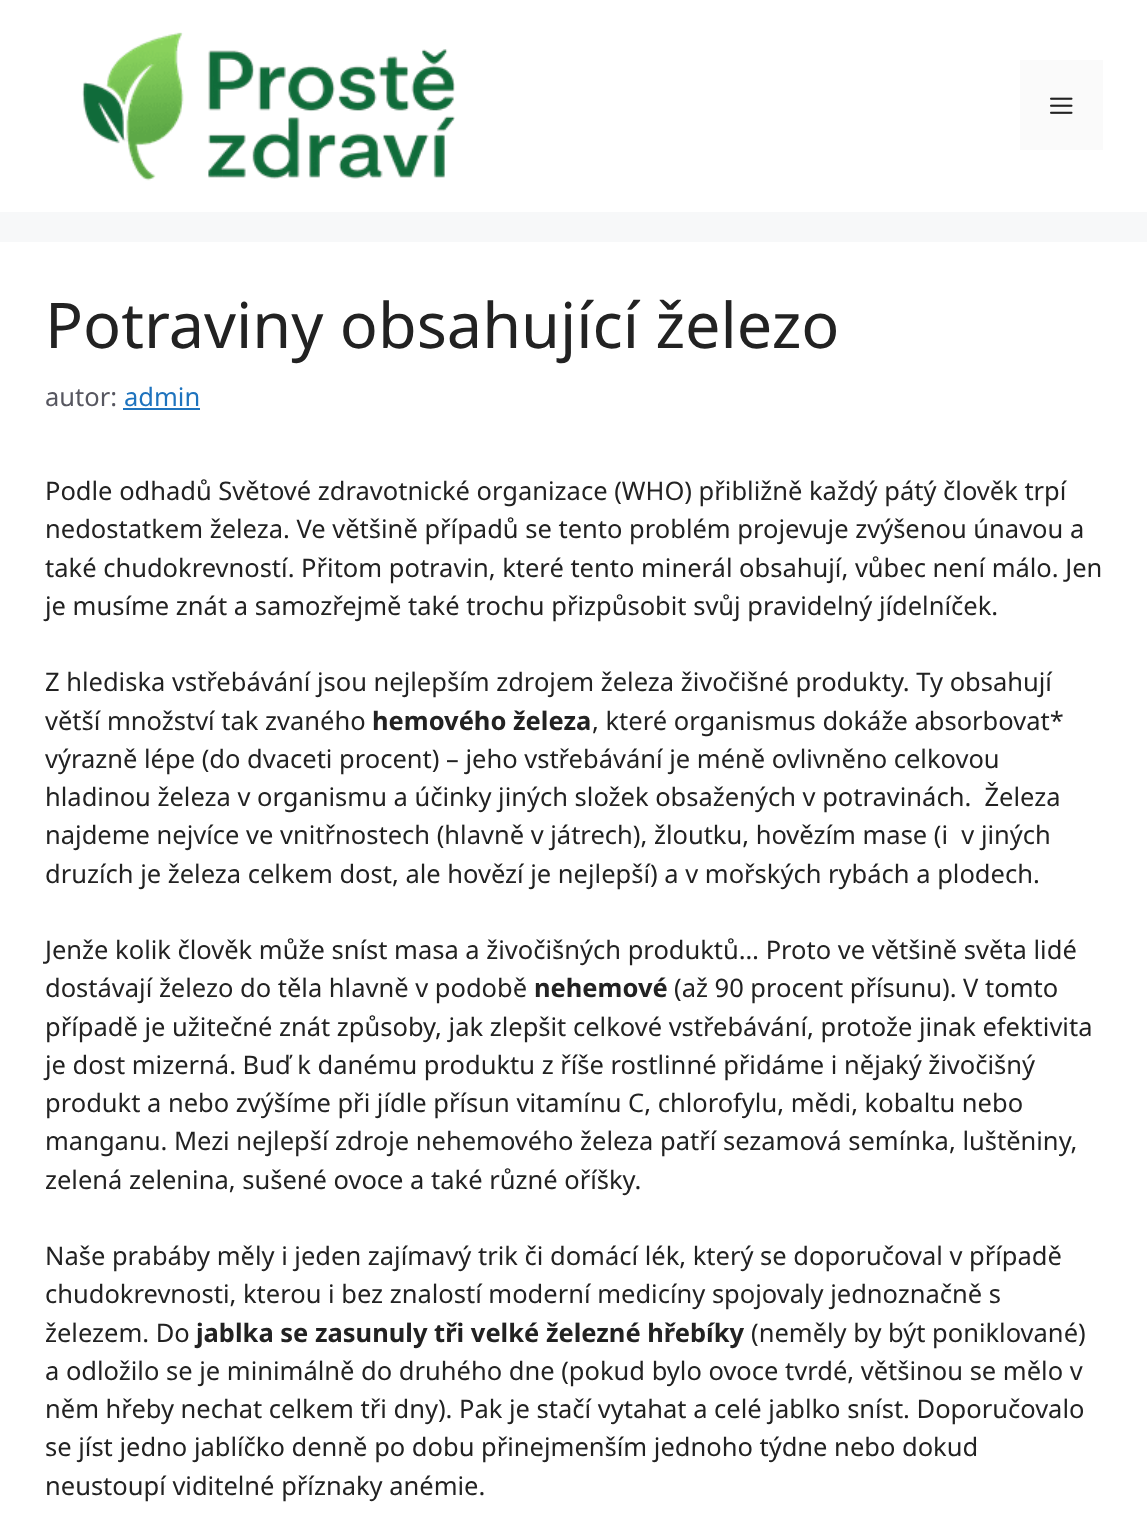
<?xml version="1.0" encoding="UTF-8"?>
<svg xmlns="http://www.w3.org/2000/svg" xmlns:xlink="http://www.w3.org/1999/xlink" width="1147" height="1514">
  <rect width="100%" height="100%" fill="#f7f8f9" />
  <rect width="1147" height="212" fill="#ffffff" />
  <image x="82" y="32" width="373" height="149" xlink:href="image1.png" />
  <rect x="1020" y="60" width="83" height="90" fill="#fafafa" />
  <image x="1050" y="97" width="23" height="17" xlink:href="image2.png" />
  <rect y="242" width="1147" height="1272" fill="#ffffff" />
  <rect x="123" y="408" width="77" height="2" fill="#1e73be" />
  <text x="45" y="348" style="font-family: Noto Sans; font-size: 63px; fill: #222222">Potraviny obsahující železo</text>
  <text x="45" y="406" style="font-family: Noto Sans; font-size: 25.5px; fill: #575760">autor:</text>
  <text x="124" y="406" style="font-family: Noto Sans; font-size: 25.5px; fill: #1e73be">admin</text>
  <text x="45" y="500" style="font-family: Noto Sans; font-size: 25.5px; fill: #222222">Podle odhadů Světové zdravotnické organizace (WHO) přibližně každý pátý člověk trpí</text>
  <text x="45" y="538" style="font-family: Noto Sans; font-size: 25.5px; fill: #222222">nedostatkem železa. Ve většině případů se tento problém projevuje zvýšenou únavou a</text>
  <text x="45" y="577" style="font-family: Noto Sans; font-size: 25.5px; fill: #222222">také chudokrevností. Přitom potravin, které tento minerál obsahují, vůbec není málo. Jen</text>
  <text x="45" y="615" style="font-family: Noto Sans; font-size: 25.5px; fill: #222222">je musíme znát a samozřejmě také trochu přizpůsobit svůj pravidelný jídelníček.</text>
  <text x="45" y="691" style="font-family: Noto Sans; font-size: 25.5px; fill: #222222">Z hlediska vstřebávání jsou nejlepším zdrojem železa živočišné produkty. Ty obsahují</text>
  <text x="45" y="730" style="font-family: Noto Sans; font-size: 25.5px; fill: #222222">větší množství tak zvaného</text>
  <text x="372" y="730" style="font-family: Noto Sans; font-size: 25.5px; font-weight: bold; fill: #222222">hemového železa</text>
  <text x="592" y="730" style="font-family: Noto Sans; font-size: 25.5px; fill: #222222">, které organismus dokáže absorbovat*</text>
  <text x="45" y="768" style="font-family: Noto Sans; font-size: 25.5px; fill: #222222">výrazně lépe (do dvaceti procent) – jeho vstřebávání je méně ovlivněno celkovou</text>
  <text x="45" y="806" style="font-family: Noto Sans; font-size: 25.5px; fill: #222222" xml:space="preserve">hladinou železa v organismu a účinky jiných složek obsažených v potravinách.  Železa</text>
  <text x="45" y="844" style="font-family: Noto Sans; font-size: 25.5px; fill: #222222" xml:space="preserve">najdeme nejvíce ve vnitřnostech (hlavně v játrech), žloutku, hovězím mase (i  v jiných</text>
  <text x="45" y="883" style="font-family: Noto Sans; font-size: 25.5px; fill: #222222">druzích je železa celkem dost, ale hovězí je nejlepší) a v mořských rybách a plodech.</text>
  <text x="45" y="959" style="font-family: Noto Sans; font-size: 25.5px; fill: #222222">Jenže kolik člověk může sníst masa a živočišných produktů… Proto ve většině světa lidé</text>
  <text x="45" y="997" style="font-family: Noto Sans; font-size: 25.5px; fill: #222222">dostávají železo do těla hlavně v podobě</text>
  <text x="534" y="997" style="font-family: Noto Sans; font-size: 25.5px; font-weight: bold; fill: #222222">nehemové</text>
  <text x="674" y="997" style="font-family: Noto Sans; font-size: 25.5px; fill: #222222">(až 90 procent přísunu). V tomto</text>
  <text x="45" y="1036" style="font-family: Noto Sans; font-size: 25.5px; fill: #222222">případě je užitečné znát způsoby, jak zlepšit celkové vstřebávání, protože jinak efektivita</text>
  <text x="45" y="1074" style="font-family: Noto Sans; font-size: 25.5px; fill: #222222">je dost mizerná. Buď k danému produktu z říše rostlinné přidáme i nějaký živočišný</text>
  <text x="45" y="1112" style="font-family: Noto Sans; font-size: 25.5px; fill: #222222">produkt a nebo zvýšíme při jídle přísun vitamínu C, chlorofylu, mědi, kobaltu nebo</text>
  <text x="45" y="1150" style="font-family: Noto Sans; font-size: 25.5px; fill: #222222">manganu. Mezi nejlepší zdroje nehemového železa patří sezamová semínka, luštěniny,</text>
  <text x="45" y="1189" style="font-family: Noto Sans; font-size: 25.5px; fill: #222222">zelená zelenina, sušené ovoce a také různé oříšky.</text>
  <text x="45" y="1265" style="font-family: Noto Sans; font-size: 25.5px; fill: #222222">Naše prabáby měly i jeden zajímavý trik či domácí lék, který se doporučoval v případě</text>
  <text x="45" y="1303" style="font-family: Noto Sans; font-size: 25.5px; fill: #222222">chudokrevnosti, kterou i bez znalostí moderní medicíny spojovaly jednoznačně s</text>
  <text x="45" y="1342" style="font-family: Noto Sans; font-size: 25.5px; fill: #222222">železem. Do</text>
  <text x="196" y="1342" style="font-family: Noto Sans; font-size: 25.5px; font-weight: bold; fill: #222222">jablka se zasunuly tři velké železné hřebíky</text>
  <text x="751" y="1342" style="font-family: Noto Sans; font-size: 25.5px; fill: #222222">(neměly by být poniklované)</text>
  <text x="45" y="1380" style="font-family: Noto Sans; font-size: 25.5px; fill: #222222">a odložilo se je minimálně do druhého dne (pokud bylo ovoce tvrdé, většinou se mělo v</text>
  <text x="45" y="1418" style="font-family: Noto Sans; font-size: 25.5px; fill: #222222">něm hřeby nechat celkem tři dny). Pak je stačí vytahat a celé jablko sníst. Doporučovalo</text>
  <text x="45" y="1456" style="font-family: Noto Sans; font-size: 25.5px; fill: #222222">se jíst jedno jablíčko denně po dobu přinejmenším jednoho týdne nebo dokud</text>
  <text x="45" y="1495" style="font-family: Noto Sans; font-size: 25.5px; fill: #222222">neustoupí viditelné příznaky anémie.</text>
</svg>
